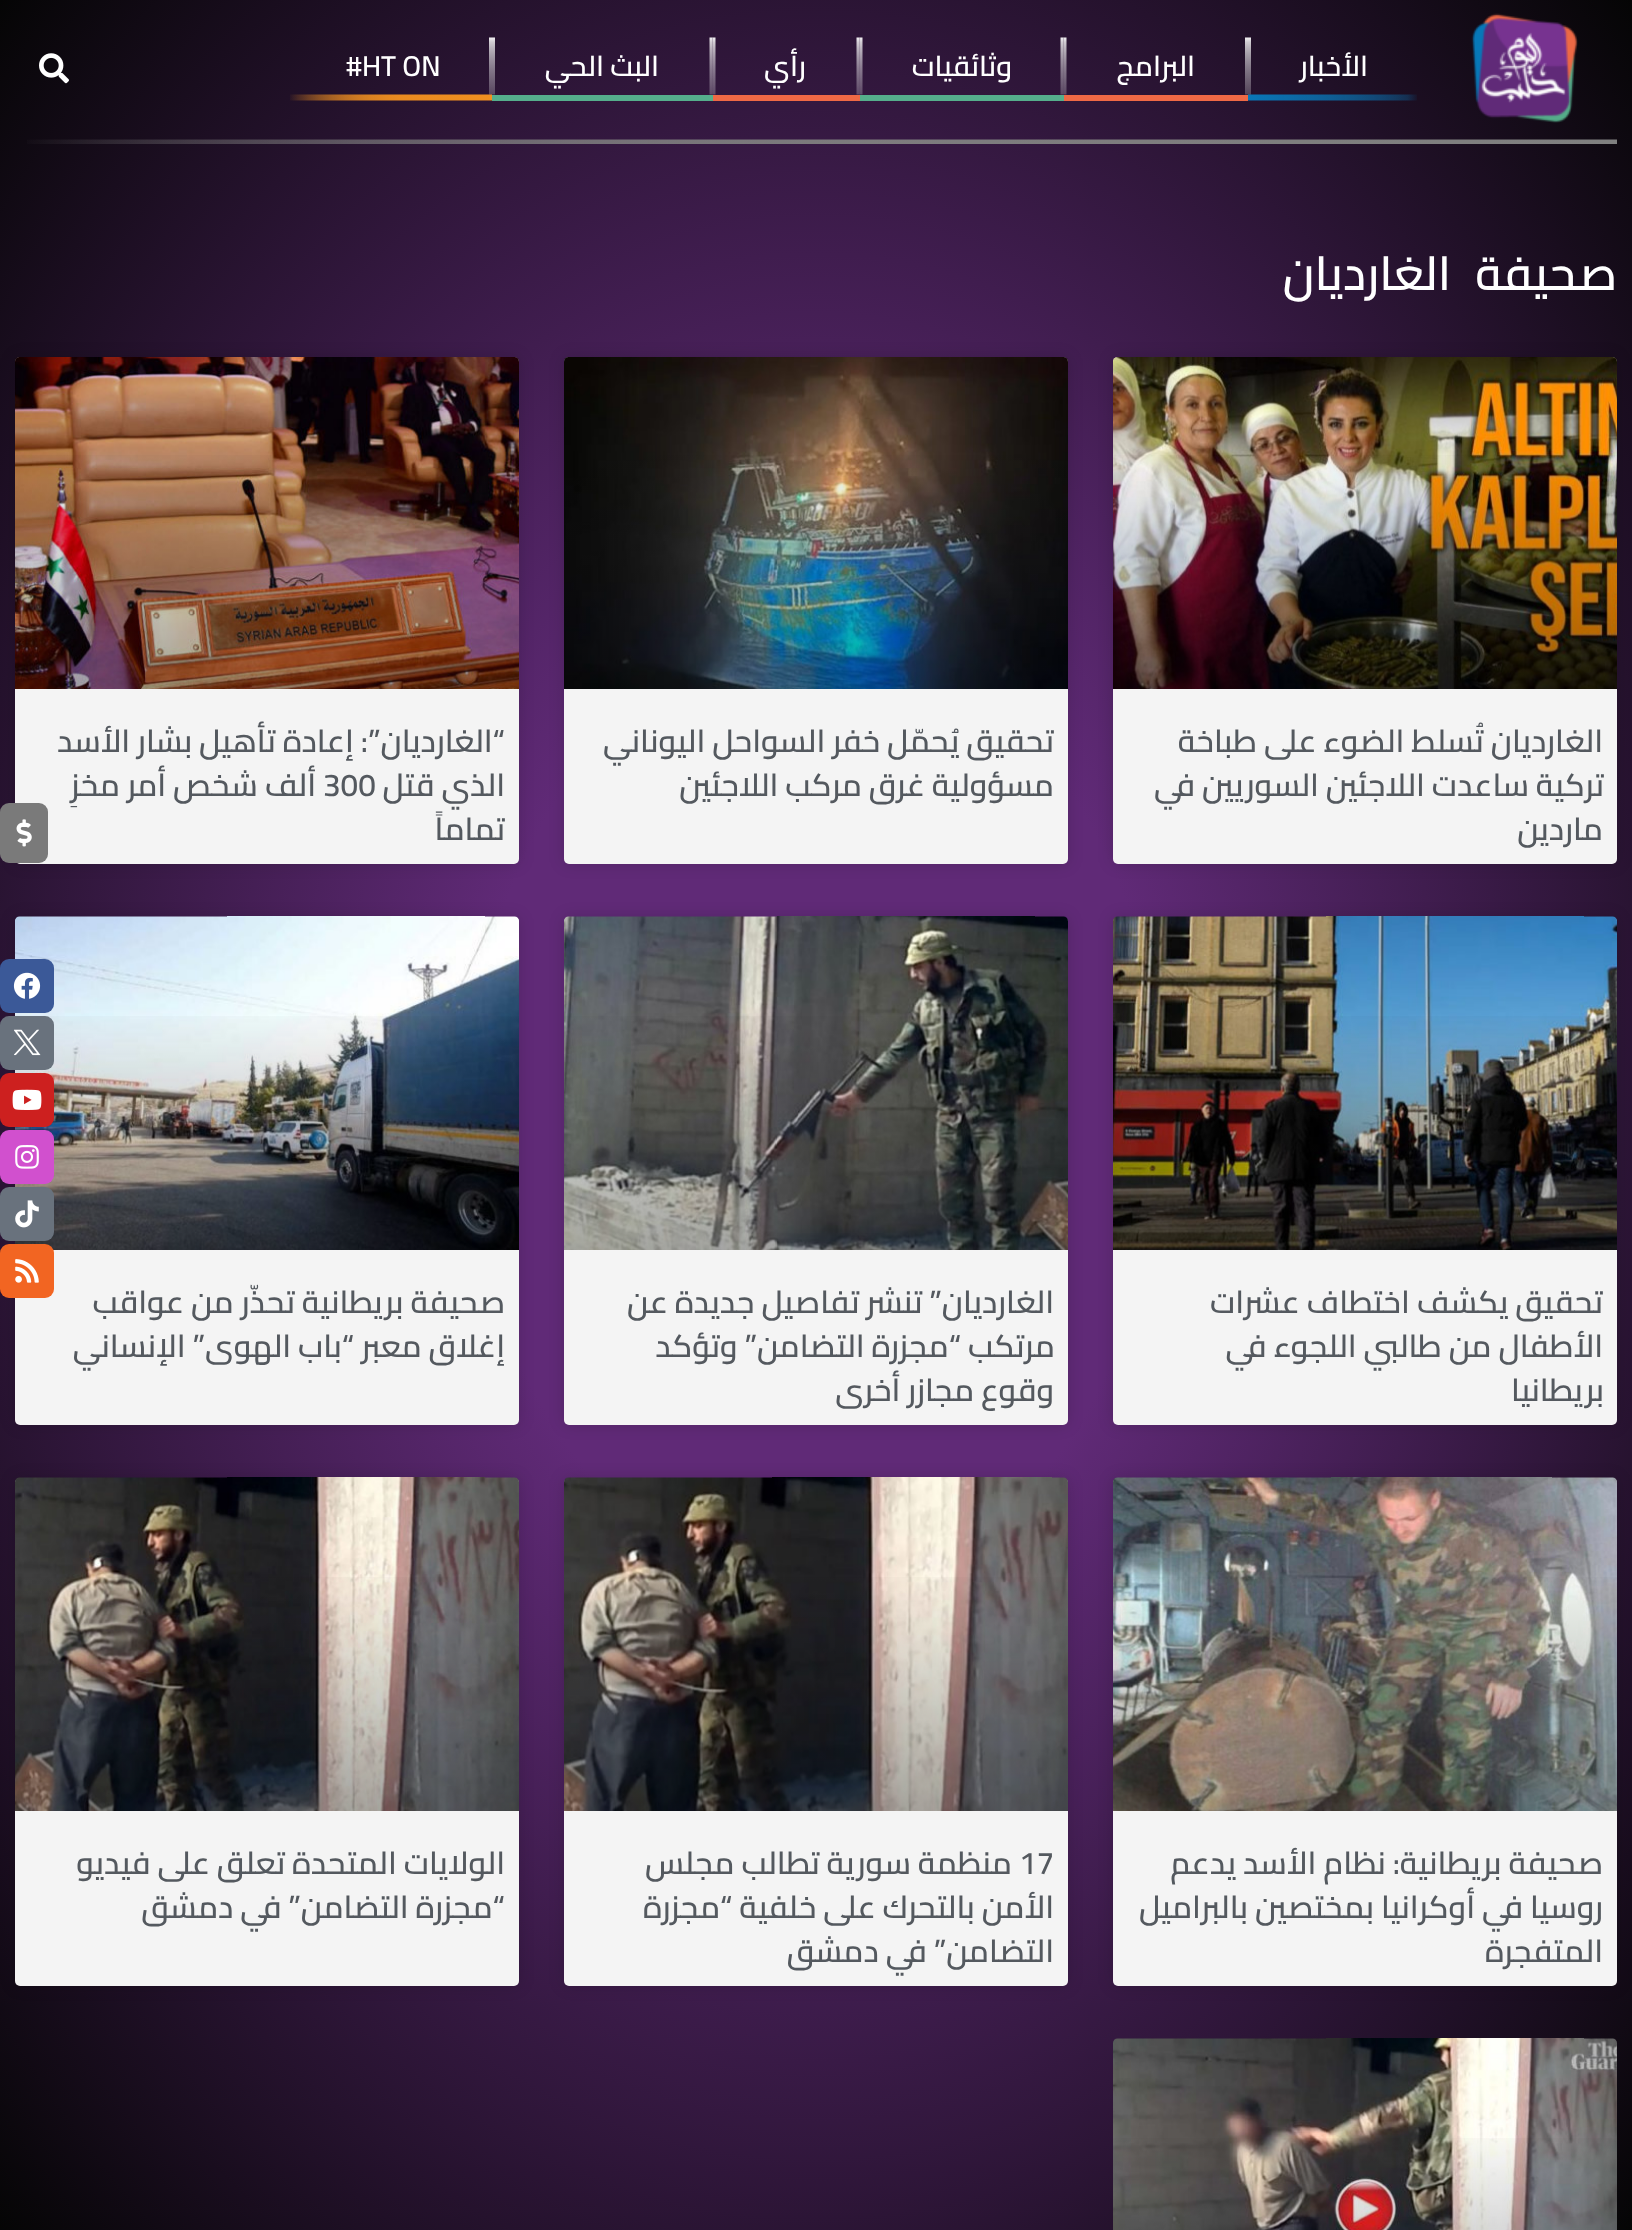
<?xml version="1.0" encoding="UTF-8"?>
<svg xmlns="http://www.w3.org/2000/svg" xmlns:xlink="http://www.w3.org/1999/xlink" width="1632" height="2230">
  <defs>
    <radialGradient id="g1" gradientUnits="userSpaceOnUse" cx="0" cy="0" r="1" gradientTransform="matrix(1154 0 0 1577 816 1115)"><stop offset="0.3" stop-color="#602a77" /><stop offset="1" stop-color="#050505" /></radialGradient>
    <linearGradient id="g2" gradientUnits="userSpaceOnUse" x1="1365" y1="689" x2="1365" y2="357"><stop offset="0" stop-color="#000000" stop-opacity="0.35" /><stop offset="0.75" stop-color="#000000" stop-opacity="0" /></linearGradient>
    <linearGradient id="g3" gradientUnits="userSpaceOnUse" x1="816" y1="689" x2="816" y2="357"><stop offset="0" stop-color="#000000" stop-opacity="0.35" /><stop offset="0.75" stop-color="#000000" stop-opacity="0" /></linearGradient>
    <linearGradient id="g4" gradientUnits="userSpaceOnUse" x1="267" y1="689" x2="267" y2="357"><stop offset="0" stop-color="#000000" stop-opacity="0.35" /><stop offset="0.75" stop-color="#000000" stop-opacity="0" /></linearGradient>
    <linearGradient id="g5" gradientUnits="userSpaceOnUse" x1="1365" y1="1250" x2="1365" y2="917"><stop offset="0" stop-color="#000000" stop-opacity="0.35" /><stop offset="0.75" stop-color="#000000" stop-opacity="0" /></linearGradient>
    <linearGradient id="g6" gradientUnits="userSpaceOnUse" x1="816" y1="1250" x2="816" y2="917"><stop offset="0" stop-color="#000000" stop-opacity="0.35" /><stop offset="0.75" stop-color="#000000" stop-opacity="0" /></linearGradient>
    <linearGradient id="g7" gradientUnits="userSpaceOnUse" x1="267" y1="1250" x2="267" y2="917"><stop offset="0" stop-color="#000000" stop-opacity="0.35" /><stop offset="0.75" stop-color="#000000" stop-opacity="0" /></linearGradient>
    <linearGradient id="g8" gradientUnits="userSpaceOnUse" x1="1365" y1="1811" x2="1365" y2="1478"><stop offset="0" stop-color="#000000" stop-opacity="0.35" /><stop offset="0.75" stop-color="#000000" stop-opacity="0" /></linearGradient>
    <linearGradient id="g9" gradientUnits="userSpaceOnUse" x1="816" y1="1811" x2="816" y2="1478"><stop offset="0" stop-color="#000000" stop-opacity="0.35" /><stop offset="0.75" stop-color="#000000" stop-opacity="0" /></linearGradient>
    <linearGradient id="g10" gradientUnits="userSpaceOnUse" x1="267" y1="1811" x2="267" y2="1478"><stop offset="0" stop-color="#000000" stop-opacity="0.35" /><stop offset="0.75" stop-color="#000000" stop-opacity="0" /></linearGradient>
    <linearGradient id="g11" gradientUnits="userSpaceOnUse" x1="1365" y1="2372" x2="1365" y2="2039"><stop offset="0" stop-color="#000000" stop-opacity="0.35" /><stop offset="0.75" stop-color="#000000" stop-opacity="0" /></linearGradient>
  </defs>
  <rect width="100%" height="100%" fill="#ffffff" />
  <rect width="1632" height="2230" fill="url(#g1)" />
  <image x="27" y="139" width="1590" height="5" xlink:href="image1.png" />
  <image x="1471" y="13" width="107" height="110" xlink:href="image2.png" />
  <image x="1248" y="94" width="169" height="7" xlink:href="image3.png" />
  <image x="1248" y="37" width="3" height="58" xlink:href="image4.png" />
  <rect x="1064" y="95" width="184" height="6" fill="#ef6945" />
  <image x="1245" y="37" width="3" height="58" xlink:href="image5.png" />
  <image x="1063" y="37" width="4" height="58" xlink:href="image6.png" />
  <rect x="860" y="95" width="204" height="6" fill="#55ae8c" />
  <image x="1060" y="37" width="4" height="58" xlink:href="image7.png" />
  <image x="859" y="37" width="4" height="58" xlink:href="image8.png" />
  <rect x="713" y="95" width="147" height="6" fill="#ef6945" />
  <image x="856" y="37" width="4" height="58" xlink:href="image9.png" />
  <image x="712" y="37" width="4" height="58" xlink:href="image10.png" />
  <rect x="492" y="95" width="221" height="6" fill="#55ae8c" />
  <image x="709" y="37" width="4" height="58" xlink:href="image11.png" />
  <image x="492" y="37" width="3" height="58" xlink:href="image12.png" />
  <image x="290" y="94" width="202" height="7" xlink:href="image13.png" />
  <image x="489" y="37" width="3" height="58" xlink:href="image14.png" />
  <image x="39" y="53" width="30" height="31" xlink:href="image15.png" />
  <rect x="1113" y="357" width="504" height="507" rx="5" fill="#000000" fill-opacity="0.15" filter="blur(7.5px)" />
  <rect x="1113" y="357" width="504" height="507" rx="5" fill="#f4f4f4" />
  <image x="1113" y="357" width="504" height="332" xlink:href="image16.png" />
  <rect x="1113" y="455" width="504" height="234" fill="url(#g2)" />
  <rect x="564" y="357" width="504" height="507" rx="5" fill="#000000" fill-opacity="0.15" filter="blur(7.5px)" />
  <rect x="564" y="357" width="504" height="507" rx="5" fill="#f4f4f4" />
  <image x="564" y="357" width="504" height="332" xlink:href="image17.png" />
  <rect x="564" y="455" width="504" height="234" fill="url(#g3)" />
  <rect x="15" y="357" width="504" height="507" rx="5" fill="#000000" fill-opacity="0.15" filter="blur(7.5px)" />
  <rect x="15" y="357" width="504" height="507" rx="5" fill="#f4f4f4" />
  <image x="15" y="357" width="504" height="332" xlink:href="image18.png" />
  <rect x="15" y="455" width="504" height="234" fill="url(#g4)" />
  <rect x="1113" y="917" width="504" height="508" rx="5" fill="#000000" fill-opacity="0.15" filter="blur(7.5px)" />
  <rect x="1113" y="917" width="504" height="508" rx="5" fill="#f4f4f4" />
  <image x="1113" y="916" width="504" height="334" xlink:href="image19.png" />
  <rect x="1113" y="1016" width="504" height="234" fill="url(#g5)" />
  <rect x="564" y="917" width="504" height="508" rx="5" fill="#000000" fill-opacity="0.15" filter="blur(7.5px)" />
  <rect x="564" y="917" width="504" height="508" rx="5" fill="#f4f4f4" />
  <image x="564" y="916" width="504" height="334" xlink:href="image20.png" />
  <rect x="564" y="1016" width="504" height="234" fill="url(#g6)" />
  <rect x="15" y="917" width="504" height="508" rx="5" fill="#000000" fill-opacity="0.15" filter="blur(7.5px)" />
  <rect x="15" y="917" width="504" height="508" rx="5" fill="#f4f4f4" />
  <image x="15" y="916" width="504" height="334" xlink:href="image21.png" />
  <rect x="15" y="1016" width="504" height="234" fill="url(#g7)" />
  <rect x="1113" y="1478" width="504" height="508" rx="5" fill="#000000" fill-opacity="0.15" filter="blur(7.5px)" />
  <rect x="1113" y="1478" width="504" height="508" rx="5" fill="#f4f4f4" />
  <image x="1113" y="1477" width="504" height="334" xlink:href="image22.png" />
  <rect x="1113" y="1577" width="504" height="234" fill="url(#g8)" />
  <rect x="564" y="1478" width="504" height="508" rx="5" fill="#000000" fill-opacity="0.15" filter="blur(7.5px)" />
  <rect x="564" y="1478" width="504" height="508" rx="5" fill="#f4f4f4" />
  <image x="564" y="1477" width="504" height="334" xlink:href="image23.png" />
  <rect x="564" y="1577" width="504" height="234" fill="url(#g9)" />
  <rect x="15" y="1478" width="504" height="508" rx="5" fill="#000000" fill-opacity="0.15" filter="blur(7.5px)" />
  <rect x="15" y="1478" width="504" height="508" rx="5" fill="#f4f4f4" />
  <image x="15" y="1477" width="504" height="334" xlink:href="image24.png" />
  <rect x="15" y="1577" width="504" height="234" fill="url(#g10)" />
  <image x="1113" y="2038" width="504" height="192" xlink:href="image25.png" />
  <rect x="1113" y="2138" width="504" height="92" fill="url(#g11)" />
  <rect y="803" width="48" height="60" rx="9" fill="#7a7a7a" />
  <image x="16" y="819" width="16" height="28" xlink:href="image26.png" />
  <rect y="959" width="54" height="54" rx="9" fill="#3b5998" />
  <image x="13" y="972" width="28" height="27" xlink:href="image27.png" />
  <rect y="1016" width="54" height="54" rx="9" fill="#69727d" />
  <image x="14" y="1029" width="27" height="27" xlink:href="image28.png" />
  <rect y="1073" width="54" height="54" rx="9" fill="#cd201f" />
  <image x="12" y="1089" width="30" height="21" xlink:href="image29.png" />
  <rect y="1130" width="54" height="54" rx="9" fill="#d150ce" />
  <image x="15" y="1145" width="24" height="24" xlink:href="image30.png" />
  <rect y="1187" width="54" height="54" rx="9" fill="#69727d" />
  <image x="15" y="1200" width="24" height="28" xlink:href="image31.png" />
  <rect y="1244" width="54" height="54" rx="9" fill="#f26522" />
  <image x="15" y="1259" width="24" height="24" xlink:href="image32.png" />
  <text x="1368" y="76" style="font-family: Cairo; font-size: 28.5px; font-weight: 600; direction: rtl; fill: #ffffff">الأخبار</text>
  <text x="1195" y="76" style="font-family: Cairo; font-size: 28.5px; font-weight: 600; direction: rtl; fill: #ffffff">البرامج</text>
  <text x="1012" y="76" style="font-family: Cairo; font-size: 28.5px; font-weight: 600; direction: rtl; fill: #ffffff">وثائقيات</text>
  <text x="806" y="76" style="font-family: Cairo; font-size: 28.5px; font-weight: 600; direction: rtl; fill: #ffffff">رأي</text>
  <text x="659" y="76" style="font-family: Cairo; font-size: 28.5px; font-weight: 600; direction: rtl; fill: #ffffff">البث الحي</text>
  <text x="346" y="76" style="font-family: Cairo; font-size: 28.5px; font-weight: 600; fill: #ffffff">#HT ON</text>
  <text x="1617" y="290" word-spacing="14" style="font-family: Cairo; font-size: 47.25px; font-weight: 600; letter-spacing: -1px; direction: rtl; fill: #ffffff">صحيفة الغارديان</text>
  <text x="1603" y="752" style="font-family: Cairo; font-size: 31.5px; font-weight: 600; direction: rtl; fill: #54595f">الغارديان تُسلط الضوء على طباخة</text>
  <text x="1604" y="796" style="font-family: Cairo; font-size: 31.5px; font-weight: 600; direction: rtl; fill: #54595f">تركية ساعدت اللاجئين السوريين في</text>
  <text x="1603" y="840" style="font-family: Cairo; font-size: 31.5px; font-weight: 600; direction: rtl; fill: #54595f">ماردين</text>
  <text x="1054" y="752" style="font-family: Cairo; font-size: 31.5px; font-weight: 600; direction: rtl; fill: #54595f">تحقيق يُحمّل خفر السواحل اليوناني</text>
  <text x="1054" y="796" style="font-family: Cairo; font-size: 31.5px; font-weight: 600; direction: rtl; fill: #54595f">مسؤولية غرق مركب اللاجئين</text>
  <text x="505" y="752" style="font-family: Cairo; font-size: 31.5px; font-weight: 600; direction: rtl; fill: #54595f">“الغارديان”: إعادة تأهيل بشار الأسد</text>
  <text x="505" y="796" style="font-family: Cairo; font-size: 31.5px; font-weight: 600; direction: rtl; fill: #54595f">الذي قتل</text>
  <text x="323" y="796" style="font-family: Cairo; font-size: 31.5px; font-weight: 600; fill: #54595f">300</text>
  <text x="316" y="796" style="font-family: Cairo; font-size: 31.5px; font-weight: 600; direction: rtl; fill: #54595f">ألف شخص أمر مخزِ</text>
  <text x="505" y="840" style="font-family: Cairo; font-size: 31.5px; font-weight: 600; direction: rtl; fill: #54595f">تماماً</text>
  <text x="1603" y="1313" style="font-family: Cairo; font-size: 31.5px; font-weight: 600; direction: rtl; fill: #54595f">تحقيق يكشف اختطاف عشرات</text>
  <text x="1603" y="1357" style="font-family: Cairo; font-size: 31.5px; font-weight: 600; direction: rtl; fill: #54595f">الأطفال من طالبي اللجوء في</text>
  <text x="1604" y="1401" style="font-family: Cairo; font-size: 31.5px; font-weight: 600; direction: rtl; fill: #54595f">بريطانيا</text>
  <text x="1054" y="1313" style="font-family: Cairo; font-size: 31.5px; font-weight: 600; direction: rtl; fill: #54595f">الغارديان” تنشر تفاصيل جديدة عن</text>
  <text x="1055" y="1357" style="font-family: Cairo; font-size: 31.5px; font-weight: 600; direction: rtl; fill: #54595f">مرتكب “مجزرة التضامن” وتؤكد</text>
  <text x="1054" y="1401" style="font-family: Cairo; font-size: 31.5px; font-weight: 600; direction: rtl; fill: #54595f">وقوع مجازر أخرى</text>
  <text x="505" y="1313" style="font-family: Cairo; font-size: 31.5px; font-weight: 600; direction: rtl; fill: #54595f">صحيفة بريطانية تحذّر من عواقب</text>
  <text x="505" y="1357" style="font-family: Cairo; font-size: 31.5px; font-weight: 600; direction: rtl; fill: #54595f">إغلاق معبر “باب الهوى” اﻹنساني</text>
  <text x="1603" y="1874" style="font-family: Cairo; font-size: 31.5px; font-weight: 600; direction: rtl; fill: #54595f">صحيفة بريطانية: نظام الأسد يدعم</text>
  <text x="1603" y="1918" style="font-family: Cairo; font-size: 31.5px; font-weight: 600; direction: rtl; fill: #54595f">روسيا في أوكرانيا بمختصين بالبراميل</text>
  <text x="1603" y="1962" style="font-family: Cairo; font-size: 31.5px; font-weight: 600; direction: rtl; fill: #54595f">المتفجرة</text>
  <text x="1019" y="1874" style="font-family: Cairo; font-size: 31.5px; font-weight: 600; fill: #54595f">17</text>
  <text x="1012" y="1874" style="font-family: Cairo; font-size: 31.5px; font-weight: 600; direction: rtl; fill: #54595f">منظمة سورية تطالب مجلس</text>
  <text x="1054" y="1918" style="font-family: Cairo; font-size: 31.5px; font-weight: 600; direction: rtl; fill: #54595f">الأمن بالتحرك على خلفية “مجزرة</text>
  <text x="1054" y="1962" style="font-family: Cairo; font-size: 31.5px; font-weight: 600; direction: rtl; fill: #54595f">التضامن” في دمشق</text>
  <text x="505" y="1874" style="font-family: Cairo; font-size: 31.5px; font-weight: 600; direction: rtl; fill: #54595f">الولايات المتحدة تعلق على فيديو</text>
  <text x="505" y="1918" style="font-family: Cairo; font-size: 31.5px; font-weight: 600; direction: rtl; fill: #54595f">“مجزرة التضامن” في دمشق</text>
</svg>
